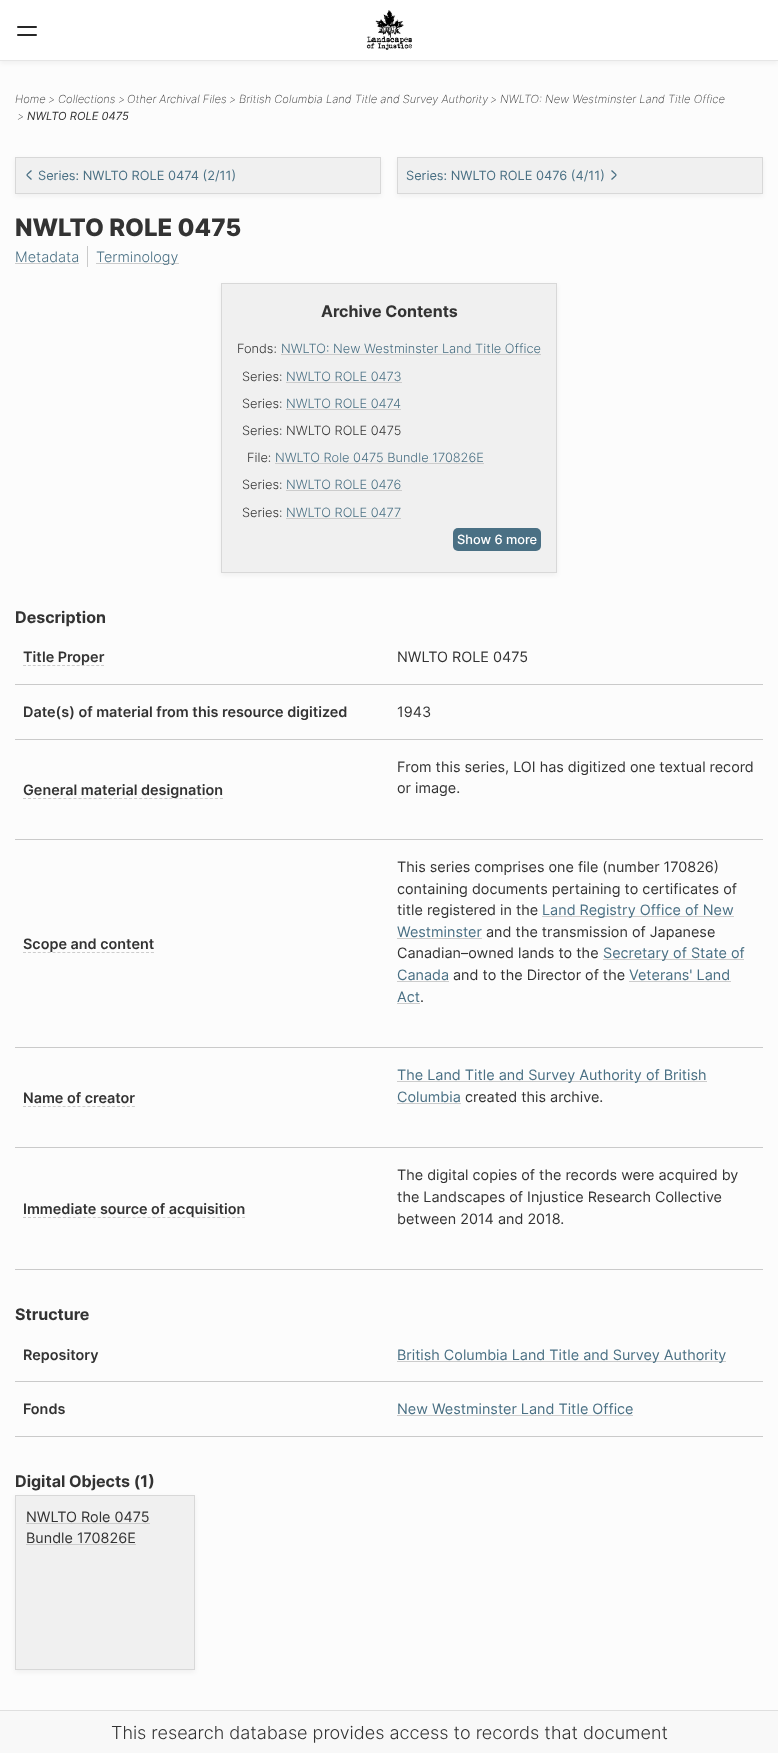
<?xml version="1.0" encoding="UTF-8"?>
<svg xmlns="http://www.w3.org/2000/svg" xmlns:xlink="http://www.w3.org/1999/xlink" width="778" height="1753">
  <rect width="100%" height="100%" fill="#fcfcfc" />
  <rect y="2" width="778" height="61" fill="#000000" fill-opacity="0.05" filter="blur(2.5px)" />
  <rect width="778" height="60" fill="#ffffff" />
  <rect y="60" width="778" height="1" fill="#e6e6e6" />
  <rect x="17" y="26" width="20" height="2" rx="1" fill="#262626" />
  <rect x="17" y="34" width="20" height="2" rx="1" fill="#262626" />
  <image x="366" y="10" width="46" height="40" xlink:href="image1.png" />
  <rect x="15" y="159" width="366" height="37" fill="#000000" fill-opacity="0.05" filter="blur(2.5px)" />
  <rect x="15.5" y="157.5" width="365" height="36" fill="#f0f0f0" stroke="#d8d8d8" />
  <path d="M 31.5 179.5 c -6 -6 -6 -3 0 -9" fill="none" stroke="#4a7084" stroke-width="1.3" />
  <rect x="397" y="159" width="366" height="37" fill="#000000" fill-opacity="0.05" filter="blur(2.5px)" />
  <rect x="397.5" y="157.5" width="365" height="36" fill="#f0f0f0" stroke="#d8d8d8" />
  <path d="M 611.5 170.5 c 6 6 6 3 0 9" fill="none" stroke="#4a7084" stroke-width="1.3" />
  <rect x="87" y="246" width="1" height="21" fill="#cacaca" />
  <rect x="15" y="263" width="64" height="1" fill="#cccccc" />
  <rect x="96" y="263" width="83" height="1" fill="#cccccc" />
  <rect x="221" y="285" width="336" height="290" fill="#000000" fill-opacity="0.05" filter="blur(2.5px)" />
  <rect x="221.5" y="283.5" width="335" height="289" fill="#f0f0f0" stroke="#d8d8d8" />
  <rect x="281" y="354" width="260" height="1" fill="#cccccc" />
  <rect x="286" y="382" width="116" height="1" fill="#cccccc" />
  <rect x="286" y="409" width="115" height="1" fill="#cccccc" />
  <rect x="275" y="463" width="209" height="1" fill="#cccccc" />
  <rect x="286" y="490" width="116" height="1" fill="#cccccc" />
  <rect x="286" y="518" width="115" height="1" fill="#cccccc" />
  <rect x="453" y="528" width="88" height="23" rx="5" fill="#4a7084" />
  <path d="M 23 665.5 h 81" fill="none" stroke="#cccccc" stroke-dasharray="3 1.88" />
  <rect x="15" y="684" width="748" height="1" fill="#cacaca" />
  <rect x="15" y="739" width="748" height="1" fill="#cacaca" />
  <path d="M 23 798.5 h 200" fill="none" stroke="#cccccc" stroke-dasharray="3 2.05" />
  <rect x="15" y="839" width="748" height="1" fill="#cacaca" />
  <path d="M 23 952.5 h 131" fill="none" stroke="#cccccc" stroke-dasharray="3 1.92" />
  <rect x="15" y="1047" width="748" height="1" fill="#cacaca" />
  <rect x="542" y="916" width="192" height="1" fill="#cccccc" />
  <rect x="397" y="938" width="85" height="1" fill="#cccccc" />
  <rect x="603" y="959" width="141" height="1" fill="#cccccc" />
  <rect x="397" y="981" width="52" height="1" fill="#cccccc" />
  <rect x="629" y="981" width="102" height="1" fill="#cccccc" />
  <rect x="397" y="1003" width="23" height="1" fill="#cccccc" />
  <path d="M 23 1106.5 h 112" fill="none" stroke="#cccccc" stroke-dasharray="3 1.95" />
  <rect x="15" y="1147" width="748" height="1" fill="#cacaca" />
  <rect x="397" y="1081" width="310" height="1" fill="#cccccc" />
  <rect x="397" y="1103" width="64" height="1" fill="#cccccc" />
  <path d="M 23 1217.5 h 222" fill="none" stroke="#cccccc" stroke-dasharray="3 1.98" />
  <rect x="15" y="1269" width="748" height="1" fill="#cacaca" />
  <rect x="15" y="1381" width="748" height="1" fill="#cacaca" />
  <rect x="397" y="1361" width="329" height="1" fill="#cccccc" />
  <rect x="15" y="1436" width="748" height="1" fill="#cacaca" />
  <rect x="397" y="1415" width="236" height="1" fill="#cccccc" />
  <rect x="15" y="1497" width="180" height="175" fill="#000000" fill-opacity="0.05" filter="blur(2.5px)" />
  <rect x="15.5" y="1495.5" width="179" height="174" fill="#f0f0f0" stroke="#d8d8d8" />
  <rect x="26" y="1523" width="124" height="1" fill="#cccccc" />
  <rect x="26" y="1544" width="110" height="1" fill="#cccccc" />
  <rect y="1711" width="778" height="42" fill="#f8f8f8" />
  <rect y="1710" width="778" height="1" fill="#dfdfdf" />
  <text x="15" y="103" style="font-family: Inter; font-size: 11.2px; font-weight: 200; font-style: italic; fill: #333333">Home</text>
  <text x="48" y="103" style="font-family: Inter; font-size: 11.2px; font-weight: 200; font-style: italic; fill: #333333">&gt;</text>
  <text x="58" y="103" style="font-family: Inter; font-size: 11.2px; font-weight: 200; font-style: italic; fill: #333333">Collections</text>
  <text x="118" y="103" style="font-family: Inter; font-size: 11.2px; font-weight: 200; font-style: italic; fill: #333333">&gt;</text>
  <text x="127" y="103" style="font-family: Inter; font-size: 11.2px; font-weight: 200; font-style: italic; fill: #333333">Other Archival Files</text>
  <text x="229" y="103" style="font-family: Inter; font-size: 11.2px; font-weight: 200; font-style: italic; fill: #333333">&gt;</text>
  <text x="239" y="103" style="font-family: Inter; font-size: 11.2px; font-weight: 200; font-style: italic; fill: #333333">British Columbia Land Title and Survey Authority</text>
  <text x="490" y="103" style="font-family: Inter; font-size: 11.2px; font-weight: 200; font-style: italic; fill: #333333">&gt;</text>
  <text x="500" y="103" style="font-family: Inter; font-size: 11.2px; font-weight: 200; font-style: italic; fill: #333333">NWLTO: New Westminster Land Title Office</text>
  <text x="17" y="120" style="font-family: Inter; font-size: 11.2px; font-weight: 200; font-style: italic; fill: #333333">&gt;</text>
  <text x="27" y="120" style="font-family: Inter; font-size: 11.2px; font-style: italic; fill: #333333">NWLTO ROLE 0475</text>
  <text x="38" y="180" style="font-family: Inter; font-size: 12.8px; fill: #4a7084">Series: NWLTO ROLE 0474 (2/11)</text>
  <text x="406" y="180" style="font-family: Inter; font-size: 12.8px; fill: #4a7084">Series: NWLTO ROLE 0476 (4/11)</text>
  <text x="15" y="236" style="font-family: Inter; font-size: 24px; font-weight: 800; fill: #333333">NWLTO ROLE 0475</text>
  <text x="15" y="262" style="font-family: Inter; font-size: 14.4px; font-weight: 300; fill: #4a7084">Metadata</text>
  <text x="96" y="262" style="font-family: Inter; font-size: 14.4px; font-weight: 300; fill: #4a7084">Terminology</text>
  <text x="321" y="317" style="font-family: Inter; font-size: 16px; font-weight: bold; fill: #333333">Archive Contents</text>
  <text x="237" y="353" style="font-family: Inter; font-size: 12.8px; font-weight: 300; fill: #333333">Fonds:</text>
  <text x="281" y="353" style="font-family: Inter; font-size: 12.8px; font-weight: 300; fill: #4a7084">NWLTO: New Westminster Land Title Office</text>
  <text x="242" y="381" style="font-family: Inter; font-size: 12.8px; font-weight: 300; fill: #333333">Series:</text>
  <text x="286" y="381" style="font-family: Inter; font-size: 12.8px; font-weight: 300; fill: #4a7084">NWLTO ROLE 0473</text>
  <text x="242" y="408" style="font-family: Inter; font-size: 12.8px; font-weight: 300; fill: #333333">Series:</text>
  <text x="286" y="408" style="font-family: Inter; font-size: 12.8px; font-weight: 300; fill: #4a7084">NWLTO ROLE 0474</text>
  <text x="242" y="435" style="font-family: Inter; font-size: 12.8px; font-weight: 300; fill: #333333">Series: NWLTO ROLE 0475</text>
  <text x="247" y="462" style="font-family: Inter; font-size: 12.8px; font-weight: 300; fill: #333333">File:</text>
  <text x="275" y="462" style="font-family: Inter; font-size: 12.8px; font-weight: 300; fill: #4a7084">NWLTO Role 0475 Bundle 170826E</text>
  <text x="242" y="489" style="font-family: Inter; font-size: 12.8px; font-weight: 300; fill: #333333">Series:</text>
  <text x="286" y="489" style="font-family: Inter; font-size: 12.8px; font-weight: 300; fill: #4a7084">NWLTO ROLE 0476</text>
  <text x="242" y="517" style="font-family: Inter; font-size: 12.8px; font-weight: 300; fill: #333333">Series:</text>
  <text x="286" y="517" style="font-family: Inter; font-size: 12.8px; font-weight: 300; fill: #4a7084">NWLTO ROLE 0477</text>
  <text x="457" y="544" style="font-family: Inter; font-size: 12.8px; font-weight: 500; fill: #ffffff">Show 6 more</text>
  <text x="15" y="623" style="font-family: Inter; font-size: 16px; font-weight: bold; fill: #333333">Description</text>
  <text x="23" y="662" style="font-family: Inter; font-size: 14.4px; font-weight: 600; fill: #333333">Title Proper</text>
  <text x="397" y="662" style="font-family: Inter; font-size: 14.4px; fill: #333333">NWLTO ROLE 0475</text>
  <text x="23" y="717" style="font-family: Inter; font-size: 14.4px; font-weight: 600; fill: #333333">Date(s) of material from this resource digitized</text>
  <text x="397" y="717" style="font-family: Inter; font-size: 14.4px; fill: #333333">1943</text>
  <text x="23" y="795" style="font-family: Inter; font-size: 14.4px; font-weight: 600; fill: #333333">General material designation</text>
  <text x="397" y="772" style="font-family: Inter; font-size: 14.4px; fill: #333333">From this series, LOI has digitized one textual record</text>
  <text x="397" y="793" style="font-family: Inter; font-size: 14.4px; fill: #333333">or image.</text>
  <text x="23" y="949" style="font-family: Inter; font-size: 14.4px; font-weight: 600; fill: #333333">Scope and content</text>
  <text x="397" y="872" style="font-family: Inter; font-size: 14.4px; fill: #333333">This series comprises one file (number 170826)</text>
  <text x="397" y="894" style="font-family: Inter; font-size: 14.4px; fill: #333333">containing documents pertaining to certificates of</text>
  <text x="397" y="915" style="font-family: Inter; font-size: 14.4px; fill: #333333">title registered in the</text>
  <text x="542" y="915" style="font-family: Inter; font-size: 14.4px; fill: #4a7084">Land Registry Office of New</text>
  <text x="397" y="937" style="font-family: Inter; font-size: 14.4px; fill: #4a7084">Westminster</text>
  <text x="486" y="937" style="font-family: Inter; font-size: 14.4px; fill: #333333">and the transmission of Japanese</text>
  <text x="397" y="958" style="font-family: Inter; font-size: 14.4px; fill: #333333">Canadian–owned lands to the</text>
  <text x="603" y="958" style="font-family: Inter; font-size: 14.4px; fill: #4a7084">Secretary of State of</text>
  <text x="397" y="980" style="font-family: Inter; font-size: 14.4px; fill: #4a7084">Canada</text>
  <text x="453" y="980" style="font-family: Inter; font-size: 14.4px; fill: #333333">and to the Director of the</text>
  <text x="629" y="980" style="font-family: Inter; font-size: 14.4px; fill: #4a7084">Veterans' Land</text>
  <text x="397" y="1002" style="font-family: Inter; font-size: 14.4px; fill: #4a7084">Act</text>
  <text x="420" y="1002" style="font-family: Inter; font-size: 14.4px; fill: #333333">.</text>
  <text x="23" y="1103" style="font-family: Inter; font-size: 14.4px; font-weight: 600; fill: #333333">Name of creator</text>
  <text x="397" y="1080" style="font-family: Inter; font-size: 14.4px; fill: #4a7084">The Land Title and Survey Authority of British</text>
  <text x="397" y="1102" style="font-family: Inter; font-size: 14.4px; fill: #4a7084">Columbia</text>
  <text x="465" y="1102" style="font-family: Inter; font-size: 14.4px; fill: #333333">created this archive.</text>
  <text x="23" y="1214" style="font-family: Inter; font-size: 14.4px; font-weight: 600; fill: #333333">Immediate source of acquisition</text>
  <text x="397" y="1180" style="font-family: Inter; font-size: 14.4px; fill: #333333">The digital copies of the records were acquired by</text>
  <text x="397" y="1202" style="font-family: Inter; font-size: 14.4px; fill: #333333">the Landscapes of Injustice Research Collective</text>
  <text x="397" y="1224" style="font-family: Inter; font-size: 14.4px; fill: #333333">between 2014 and 2018.</text>
  <text x="15" y="1320" style="font-family: Inter; font-size: 16px; font-weight: bold; fill: #333333">Structure</text>
  <text x="23" y="1360" style="font-family: Inter; font-size: 14.4px; font-weight: 600; fill: #333333">Repository</text>
  <text x="397" y="1360" style="font-family: Inter; font-size: 14.4px; fill: #4a7084">British Columbia Land Title and Survey Authority</text>
  <text x="23" y="1414" style="font-family: Inter; font-size: 14.4px; font-weight: 600; fill: #333333">Fonds</text>
  <text x="397" y="1414" style="font-family: Inter; font-size: 14.4px; fill: #4a7084">New Westminster Land Title Office</text>
  <text x="15" y="1487" style="font-family: Inter; font-size: 16px; font-weight: bold; fill: #333333">Digital Objects (1)</text>
  <text x="26" y="1522" style="font-family: Inter; font-size: 14.4px; fill: #333333">NWLTO Role 0475</text>
  <text x="26" y="1543" style="font-family: Inter; font-size: 14.4px; fill: #333333">Bundle 170826E</text>
  <text x="111" y="1739" style="font-family: Inter; font-size: 18px; font-weight: 300; fill: #333333">This research database provides access to records that document</text>
</svg>
